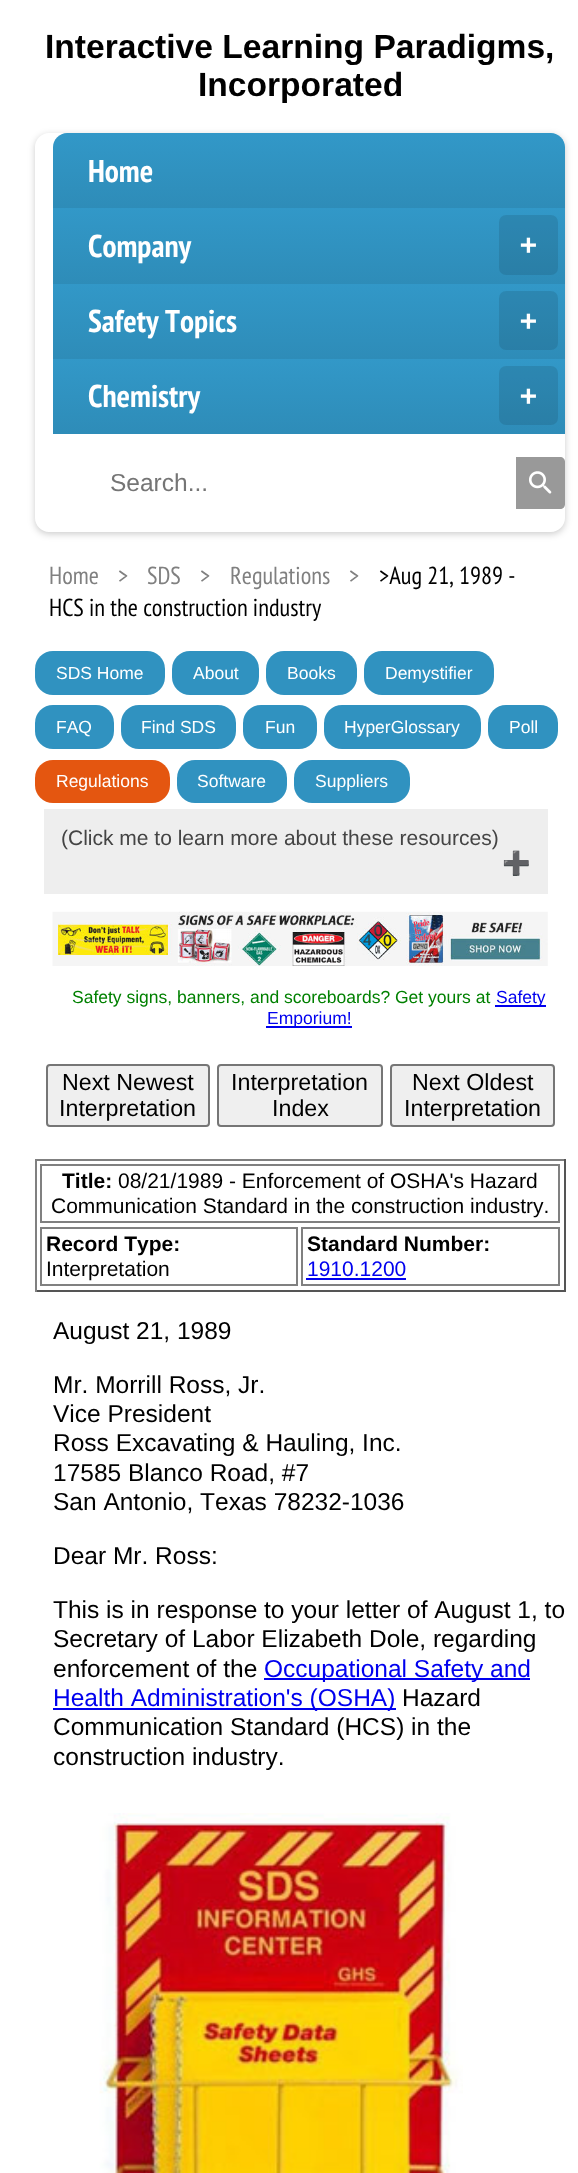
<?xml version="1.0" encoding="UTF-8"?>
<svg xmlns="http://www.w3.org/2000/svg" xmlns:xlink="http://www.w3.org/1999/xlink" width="578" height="2173">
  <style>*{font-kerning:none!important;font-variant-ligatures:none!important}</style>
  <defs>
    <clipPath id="clip1"><path d="M 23 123 h 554 v 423 h -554 z m 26 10 h 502 c 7.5 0 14 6.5 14 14 v 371 c 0 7.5 -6.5 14 -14 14 h -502 c -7.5 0 -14 -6.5 -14 -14 v -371 c 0 -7.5 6.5 -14 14 -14 z" clip-rule="evenodd" /></clipPath>
    <linearGradient id="g1" gradientUnits="userSpaceOnUse" x1="309" y1="133" x2="309" y2="208"><stop offset="0" stop-color="#3298c8" /><stop offset="1" stop-color="#2e8cb8" /></linearGradient>
    <linearGradient id="g2" gradientUnits="userSpaceOnUse" x1="309" y1="208" x2="309" y2="284"><stop offset="0" stop-color="#3298c8" /><stop offset="1" stop-color="#2e8cb8" /></linearGradient>
    <linearGradient id="g3" gradientUnits="userSpaceOnUse" x1="309" y1="283" x2="309" y2="359"><stop offset="0" stop-color="#3298c8" /><stop offset="1" stop-color="#2e8cb8" /></linearGradient>
    <linearGradient id="g4" gradientUnits="userSpaceOnUse" x1="309" y1="359" x2="309" y2="434"><stop offset="0" stop-color="#3298c8" /><stop offset="1" stop-color="#2e8cb8" /></linearGradient>
  </defs>
  <rect width="100%" height="100%" fill="#ffffff" />
  <g clip-path="url(#clip1)">
    <rect x="35" y="135" width="530" height="399" rx="14" fill="#000000" fill-opacity="0.2" filter="blur(3.5px)" />
  </g>
  <path d="M 67 133 h 484 c 7.5 0 14 6.5 14 14 v 61 h -512 v -61 c 0 -7.5 6.5 -14 14 -14 z" fill="url(#g1)" />
  <rect x="53" y="208" width="512" height="76" fill="url(#g2)" />
  <rect x="499" y="215" width="59" height="60" rx="7" fill="#000000" fill-opacity="0.1" />
  <rect x="53" y="284" width="512" height="75" fill="url(#g3)" />
  <rect x="499" y="291" width="59" height="59" rx="7" fill="#000000" fill-opacity="0.1" />
  <rect x="53" y="359" width="512" height="75" fill="url(#g4)" />
  <rect x="499" y="366" width="59" height="59" rx="7" fill="#000000" fill-opacity="0.1" />
  <path d="M 516 457 h 44 c 3 0 5 2 5 5 v 42 c 0 3 -2 5 -5 5 h -44 z" fill="#999999" />
  <image x="529" y="471" width="23" height="23" xlink:href="image1.png" />
  <rect x="35" y="651" width="130" height="44" rx="18" fill="#3092c0" />
  <rect x="172" y="651" width="87" height="44" rx="18" fill="#3092c0" />
  <rect x="266" y="651" width="91" height="44" rx="18" fill="#3092c0" />
  <rect x="364" y="651" width="130" height="44" rx="18" fill="#3092c0" />
  <rect x="35" y="705" width="79" height="44" rx="18" fill="#3092c0" />
  <rect x="121" y="705" width="115" height="44" rx="18" fill="#3092c0" />
  <rect x="243" y="705" width="74" height="44" rx="18" fill="#3092c0" />
  <rect x="324" y="705" width="157" height="44" rx="18" fill="#3092c0" />
  <rect x="488" y="705" width="70" height="44" rx="18" fill="#3092c0" />
  <rect x="35" y="760" width="135" height="43" rx="18" fill="#e45610" />
  <rect x="177" y="760" width="110" height="43" rx="18" fill="#3092c0" />
  <rect x="294" y="760" width="116" height="43" rx="18" fill="#3092c0" />
  <rect x="44" y="809" width="504" height="85" fill="#eeeeee" />
  <image x="52" y="911" width="496" height="55" xlink:href="image2.png" />
  <rect x="495" y="1005" width="51" height="2" fill="#0000ee" />
  <rect x="266" y="1026" width="86" height="2" fill="#0000ee" />
  <rect x="47" y="1065" width="162" height="61" rx="3" fill="#efefef" stroke="#767676" stroke-width="2" />
  <rect x="218" y="1065" width="164" height="61" rx="3" fill="#efefef" stroke="#767676" stroke-width="2" />
  <rect x="391" y="1065" width="163" height="61" rx="3" fill="#efefef" stroke="#767676" stroke-width="2" />
  <rect x="35" y="1159" width="530" height="2" fill="#808080" />
  <rect x="564" y="1159" width="2" height="133" fill="#555555" />
  <rect x="35" y="1290" width="530" height="2" fill="#555555" />
  <rect x="35" y="1159" width="2" height="133" fill="#808080" />
  <rect x="41" y="1165" width="518" height="57" fill="none" stroke="#808080" stroke-width="2" />
  <rect x="41" y="1228" width="256" height="57" fill="none" stroke="#808080" stroke-width="2" />
  <rect x="302" y="1228" width="257" height="57" fill="none" stroke="#808080" stroke-width="2" />
  <rect x="306" y="1278" width="100" height="2" fill="#0000ee" />
  <rect x="264" y="1678" width="266" height="2" fill="#0000ee" />
  <rect x="53" y="1708" width="343" height="2" fill="#0000ee" />
  <image x="99" y="1813" width="364" height="360" xlink:href="image3.png" />
  <text x="45" y="58" style="font-family: Liberation Sans; font-size: 33.6px; font-weight: bold; fill: #000000">Interactive Learning Paradigms,</text>
  <text x="198" y="96" style="font-family: Liberation Sans; font-size: 33.6px; font-weight: bold; fill: #000000">Incorporated</text>
  <text x="88" y="182" style="font-family: PT Sans Narrow; font-size: 31.5px; font-weight: bold; fill: #ffffff">Home</text>
  <text x="88" y="257" style="font-family: PT Sans Narrow; font-size: 31.5px; font-weight: bold; fill: #ffffff">Company</text>
  <text x="520" y="254" style="font-family: DejaVu Sans Mono; font-size: 28px; font-weight: bold; fill: #ffffff">+</text>
  <text x="88" y="332" style="font-family: PT Sans Narrow; font-size: 31.5px; font-weight: bold; fill: #ffffff">Safety Topics</text>
  <text x="520" y="330" style="font-family: DejaVu Sans Mono; font-size: 28px; font-weight: bold; fill: #ffffff">+</text>
  <text x="88" y="407" style="font-family: PT Sans Narrow; font-size: 31.5px; font-weight: bold; fill: #ffffff">Chemistry</text>
  <text x="520" y="405" style="font-family: DejaVu Sans Mono; font-size: 28px; font-weight: bold; fill: #ffffff">+</text>
  <text x="110" y="491" style="font-family: Liberation Sans; font-size: 24.5px; fill: #757575">Search...</text>
  <text x="49" y="584" style="font-family: PT Sans Narrow; font-size: 24.5px; fill: #808080">Home</text>
  <text x="118" y="584" style="font-family: PT Sans Narrow; font-size: 24.5px; fill: #808080">&gt;</text>
  <text x="147" y="584" style="font-family: PT Sans Narrow; font-size: 24.5px; fill: #808080">SDS</text>
  <text x="200" y="584" style="font-family: PT Sans Narrow; font-size: 24.5px; fill: #808080">&gt;</text>
  <text x="230" y="584" style="font-family: PT Sans Narrow; font-size: 24.5px; fill: #808080">Regulations</text>
  <text x="349" y="584" style="font-family: PT Sans Narrow; font-size: 24.5px; fill: #808080">&gt;</text>
  <text x="379" y="584" style="font-family: PT Sans Narrow; font-size: 24.5px; fill: #000000">&gt;Aug 21, 1989 -</text>
  <text x="49" y="616" style="font-family: PT Sans Narrow; font-size: 24.5px; fill: #000000">HCS in the construction industry</text>
  <text x="56" y="679" style="font-family: Liberation Sans; font-size: 17.5px; fill: #ffffff">SDS Home</text>
  <text x="193" y="679" style="font-family: Liberation Sans; font-size: 17.5px; fill: #ffffff">About</text>
  <text x="287" y="679" style="font-family: Liberation Sans; font-size: 17.5px; fill: #ffffff">Books</text>
  <text x="385" y="679" style="font-family: Liberation Sans; font-size: 17.5px; fill: #ffffff">Demystifier</text>
  <text x="56" y="733" style="font-family: Liberation Sans; font-size: 17.5px; fill: #ffffff">FAQ</text>
  <text x="141" y="733" style="font-family: Liberation Sans; font-size: 17.5px; fill: #ffffff">Find SDS</text>
  <text x="265" y="733" style="font-family: Liberation Sans; font-size: 17.5px; fill: #ffffff">Fun</text>
  <text x="344" y="733" style="font-family: Liberation Sans; font-size: 17.5px; fill: #ffffff">HyperGlossary</text>
  <text x="509" y="733" style="font-family: Liberation Sans; font-size: 17.5px; fill: #ffffff">Poll</text>
  <text x="56" y="787" style="font-family: Liberation Sans; font-size: 17.5px; fill: #ffffff">Regulations</text>
  <text x="197" y="787" style="font-family: Liberation Sans; font-size: 17.5px; fill: #ffffff">Software</text>
  <text x="315" y="787" style="font-family: Liberation Sans; font-size: 17.5px; fill: #ffffff">Suppliers</text>
  <text x="61" y="845" style="font-family: Liberation Sans; font-size: 21px; fill: #444444">(Click me to learn more about these resources)</text>
  <text x="502" y="871" style="font-family: Noto Color Emoji; font-size: 23px; fill: #ffffff">➕</text>
  <text x="72" y="1003" style="font-family: Liberation Sans; font-size: 17.5px; fill: #008000">Safety signs, banners, and scoreboards? Get yours at</text>
  <text x="496" y="1003" style="font-family: Liberation Sans; font-size: 17.5px; fill: #0000ee">Safety</text>
  <text x="267" y="1024" style="font-family: Liberation Sans; font-size: 17.5px; fill: #0000ee">Emporium!</text>
  <text x="62" y="1090" style="font-family: Liberation Sans; font-size: 23.25px; fill: #000000">Next Newest</text>
  <text x="59" y="1116" style="font-family: Liberation Sans; font-size: 23.25px; fill: #000000">Interpretation</text>
  <text x="231" y="1090" style="font-family: Liberation Sans; font-size: 23.25px; fill: #000000">Interpretation</text>
  <text x="272" y="1116" style="font-family: Liberation Sans; font-size: 23.25px; fill: #000000">Index</text>
  <text x="412" y="1090" style="font-family: Liberation Sans; font-size: 23.25px; fill: #000000">Next Oldest</text>
  <text x="404" y="1116" style="font-family: Liberation Sans; font-size: 23.25px; fill: #000000">Interpretation</text>
  <text x="62" y="1188" style="font-family: Liberation Sans; font-size: 21px; font-weight: bold; fill: #000000">Title:</text>
  <text x="118" y="1188" style="font-family: Liberation Sans; font-size: 21px; fill: #000000">08/21/1989 - Enforcement of OSHA's Hazard</text>
  <text x="51" y="1213" style="font-family: Liberation Sans; font-size: 21px; fill: #000000">Communication Standard in the construction industry.</text>
  <text x="46" y="1251" style="font-family: Liberation Sans; font-size: 21px; font-weight: bold; fill: #000000">Record Type:</text>
  <text x="46" y="1276" style="font-family: Liberation Sans; font-size: 21px; fill: #000000">Interpretation</text>
  <text x="307" y="1251" style="font-family: Liberation Sans; font-size: 21px; font-weight: bold; fill: #000000">Standard Number:</text>
  <text x="307" y="1276" style="font-family: Liberation Sans; font-size: 21px; fill: #0000ee">1910.1200</text>
  <text x="53" y="1339" style="font-family: Liberation Sans; font-size: 24.5px; fill: #000000">August 21, 1989</text>
  <text x="53" y="1393" style="font-family: Liberation Sans; font-size: 24.5px; fill: #000000">Mr. Morrill Ross, Jr.</text>
  <text x="53" y="1422" style="font-family: Liberation Sans; font-size: 24.5px; fill: #000000">Vice President</text>
  <text x="53" y="1451" style="font-family: Liberation Sans; font-size: 24.5px; fill: #000000">Ross Excavating &amp; Hauling, Inc.</text>
  <text x="53" y="1481" style="font-family: Liberation Sans; font-size: 24.5px; fill: #000000">17585 Blanco Road, #7</text>
  <text x="53" y="1510" style="font-family: Liberation Sans; font-size: 24.5px; fill: #000000">San Antonio, Texas 78232-1036</text>
  <text x="53" y="1564" style="font-family: Liberation Sans; font-size: 24.5px; fill: #000000">Dear Mr. Ross:</text>
  <text x="53" y="1618" style="font-family: Liberation Sans; font-size: 24.5px; fill: #000000">This is in response to your letter of August 1, to</text>
  <text x="53" y="1647" style="font-family: Liberation Sans; font-size: 24.5px; fill: #000000">Secretary of Labor Elizabeth Dole, regarding</text>
  <text x="53" y="1677" style="font-family: Liberation Sans; font-size: 24.5px; fill: #000000">enforcement of the</text>
  <text x="264" y="1677" style="font-family: Liberation Sans; font-size: 24.5px; fill: #0000ee">Occupational Safety and</text>
  <text x="53" y="1706" style="font-family: Liberation Sans; font-size: 24.5px; fill: #0000ee">Health Administration's (OSHA)</text>
  <text x="402" y="1706" style="font-family: Liberation Sans; font-size: 24.5px; fill: #000000">Hazard</text>
  <text x="53" y="1735" style="font-family: Liberation Sans; font-size: 24.5px; fill: #000000">Communication Standard (HCS) in the</text>
  <text x="53" y="1765" style="font-family: Liberation Sans; font-size: 24.5px; fill: #000000">construction industry.</text>
</svg>
